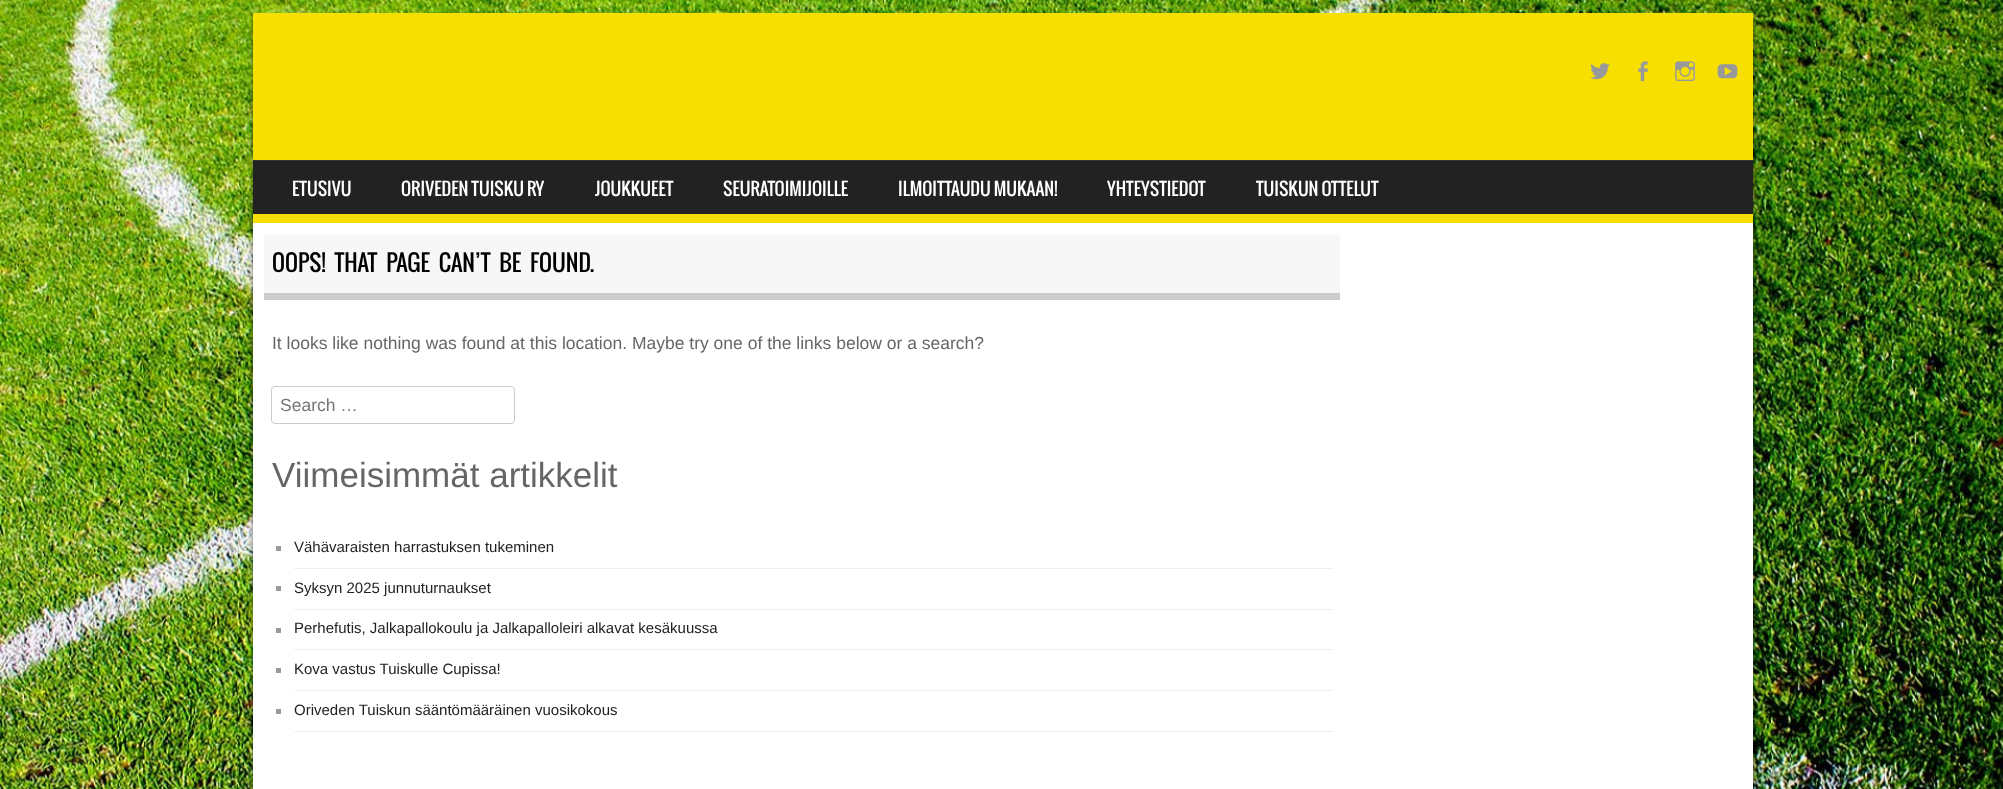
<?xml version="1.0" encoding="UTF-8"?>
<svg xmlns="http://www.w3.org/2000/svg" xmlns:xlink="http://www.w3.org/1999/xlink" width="2003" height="789">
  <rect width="100%" height="100%" fill="#ffffff" />
  <image x="0" y="0" width="2003" height="789" xlink:href="image1.png" />
  <rect x="253" y="18" width="1500" height="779" fill="#000000" fill-opacity="0.6" filter="blur(2.5px)" />
  <rect x="253" y="13" width="1500" height="210" fill="#f7df02" />
  <image x="1590" y="63" width="20" height="17" xlink:href="image2.png" />
  <image x="1638" y="61" width="10" height="21" xlink:href="image3.png" />
  <image x="1675" y="61" width="20" height="21" xlink:href="image4.png" />
  <image x="1717" y="64" width="21" height="15" xlink:href="image5.png" />
  <rect x="253" y="161" width="1500" height="53" fill="#222222" />
  <rect x="253" y="160" width="1500" height="1" fill="#333333" />
  <rect x="253" y="223" width="1500" height="566" fill="#ffffff" />
  <rect x="264" y="235" width="1076" height="58" fill="#f7f7f7" />
  <rect x="264" y="293" width="1076" height="7" fill="#cccccc" />
  <rect x="271.5" y="386.5" width="243" height="37" rx="3.5" fill="none" stroke="#cccccc" />
  <rect x="294" y="568" width="1039" height="1" fill="#efefef" />
  <rect x="276" y="546" width="5" height="5" fill="#999999" />
  <rect x="294" y="609" width="1039" height="1" fill="#efefef" />
  <rect x="276" y="586" width="5" height="5" fill="#999999" />
  <rect x="294" y="649" width="1039" height="1" fill="#efefef" />
  <rect x="276" y="628" width="5" height="5" fill="#999999" />
  <rect x="294" y="690" width="1039" height="1" fill="#efefef" />
  <rect x="276" y="668" width="5" height="5" fill="#999999" />
  <rect x="294" y="731" width="1039" height="1" fill="#efefef" />
  <rect x="276" y="709" width="5" height="5" fill="#999999" />
  <text x="292" y="196" style="font-family: Oswald; font-size: 17.5px; fill: #ffffff">ETUSIVU</text>
  <text x="401" y="196" style="font-family: Oswald; font-size: 17.5px; fill: #ffffff">ORIVEDEN TUISKU RY</text>
  <text x="595" y="196" style="font-family: Oswald; font-size: 17.5px; fill: #ffffff">JOUKKUEET</text>
  <text x="723" y="196" style="font-family: Oswald; font-size: 17.5px; fill: #ffffff">SEURATOIMIJOILLE</text>
  <text x="898" y="196" style="font-family: Oswald; font-size: 17.5px; fill: #ffffff">ILMOITTAUDU MUKAAN!</text>
  <text x="1107" y="196" style="font-family: Oswald; font-size: 17.5px; fill: #ffffff">YHTEYSTIEDOT</text>
  <text x="1256" y="196" style="font-family: Oswald; font-size: 17.5px; fill: #ffffff">TUISKUN OTTELUT</text>
  <text x="272" y="272" word-spacing="5" style="font-family: Oswald; font-size: 22.5px; fill: #000000">OOPS! THAT PAGE CAN’T BE FOUND.</text>
  <text x="272" y="349" style="font-family: Liberation Sans; font-size: 17.5px; fill: #666666">It looks like nothing was found at this location. Maybe try one of the links below or a search?</text>
  <text x="280" y="411" style="font-family: Liberation Sans; font-size: 17.5px; fill: #757575">Search …</text>
  <text x="272" y="487" style="font-family: Liberation Sans; font-size: 35px; fill: #666666">Viimeisimmät artikkelit</text>
  <text x="294" y="552" style="font-family: Liberation Sans; font-size: 15px; fill: #222222">Vähävaraisten harrastuksen tukeminen</text>
  <text x="294" y="593" style="font-family: Liberation Sans; font-size: 15px; fill: #222222">Syksyn 2025 junnuturnaukset</text>
  <text x="294" y="633" style="font-family: Liberation Sans; font-size: 15px; fill: #222222">Perhefutis, Jalkapallokoulu ja Jalkapalloleiri alkavat kesäkuussa</text>
  <text x="294" y="674" style="font-family: Liberation Sans; font-size: 15px; fill: #222222">Kova vastus Tuiskulle Cupissa!</text>
  <text x="294" y="715" style="font-family: Liberation Sans; font-size: 15px; fill: #222222">Oriveden Tuiskun sääntömääräinen vuosikokous</text>
</svg>
